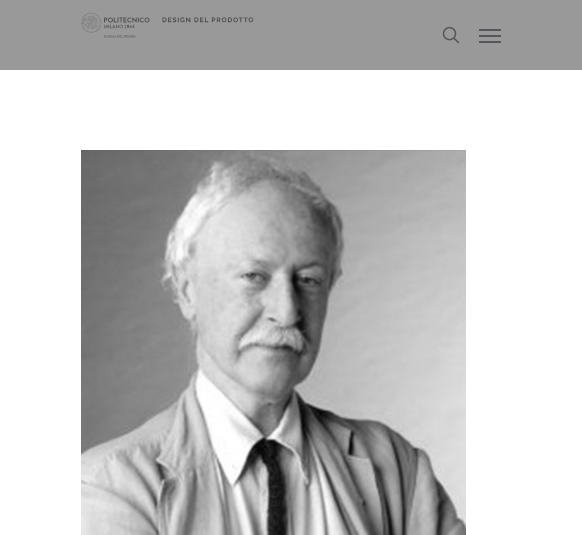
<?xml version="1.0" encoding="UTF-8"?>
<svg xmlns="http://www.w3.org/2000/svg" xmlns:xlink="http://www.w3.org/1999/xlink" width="582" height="535">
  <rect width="100%" height="100%" fill="#ffffff" />
  <rect width="582" height="70" fill="#99999a" />
  <image x="81" y="12" width="173" height="26" xlink:href="image1.png" />
  <image x="442" y="26" width="18" height="18" xlink:href="image2.png" />
  <rect x="479" y="29" width="22" height="2" fill="#55565a" />
  <rect x="479" y="41" width="22" height="2" fill="#55565a" />
  <rect x="479" y="35" width="22" height="2" fill="#55565a" />
  <image x="81" y="150" width="385" height="385" xlink:href="image3.png" />
</svg>
